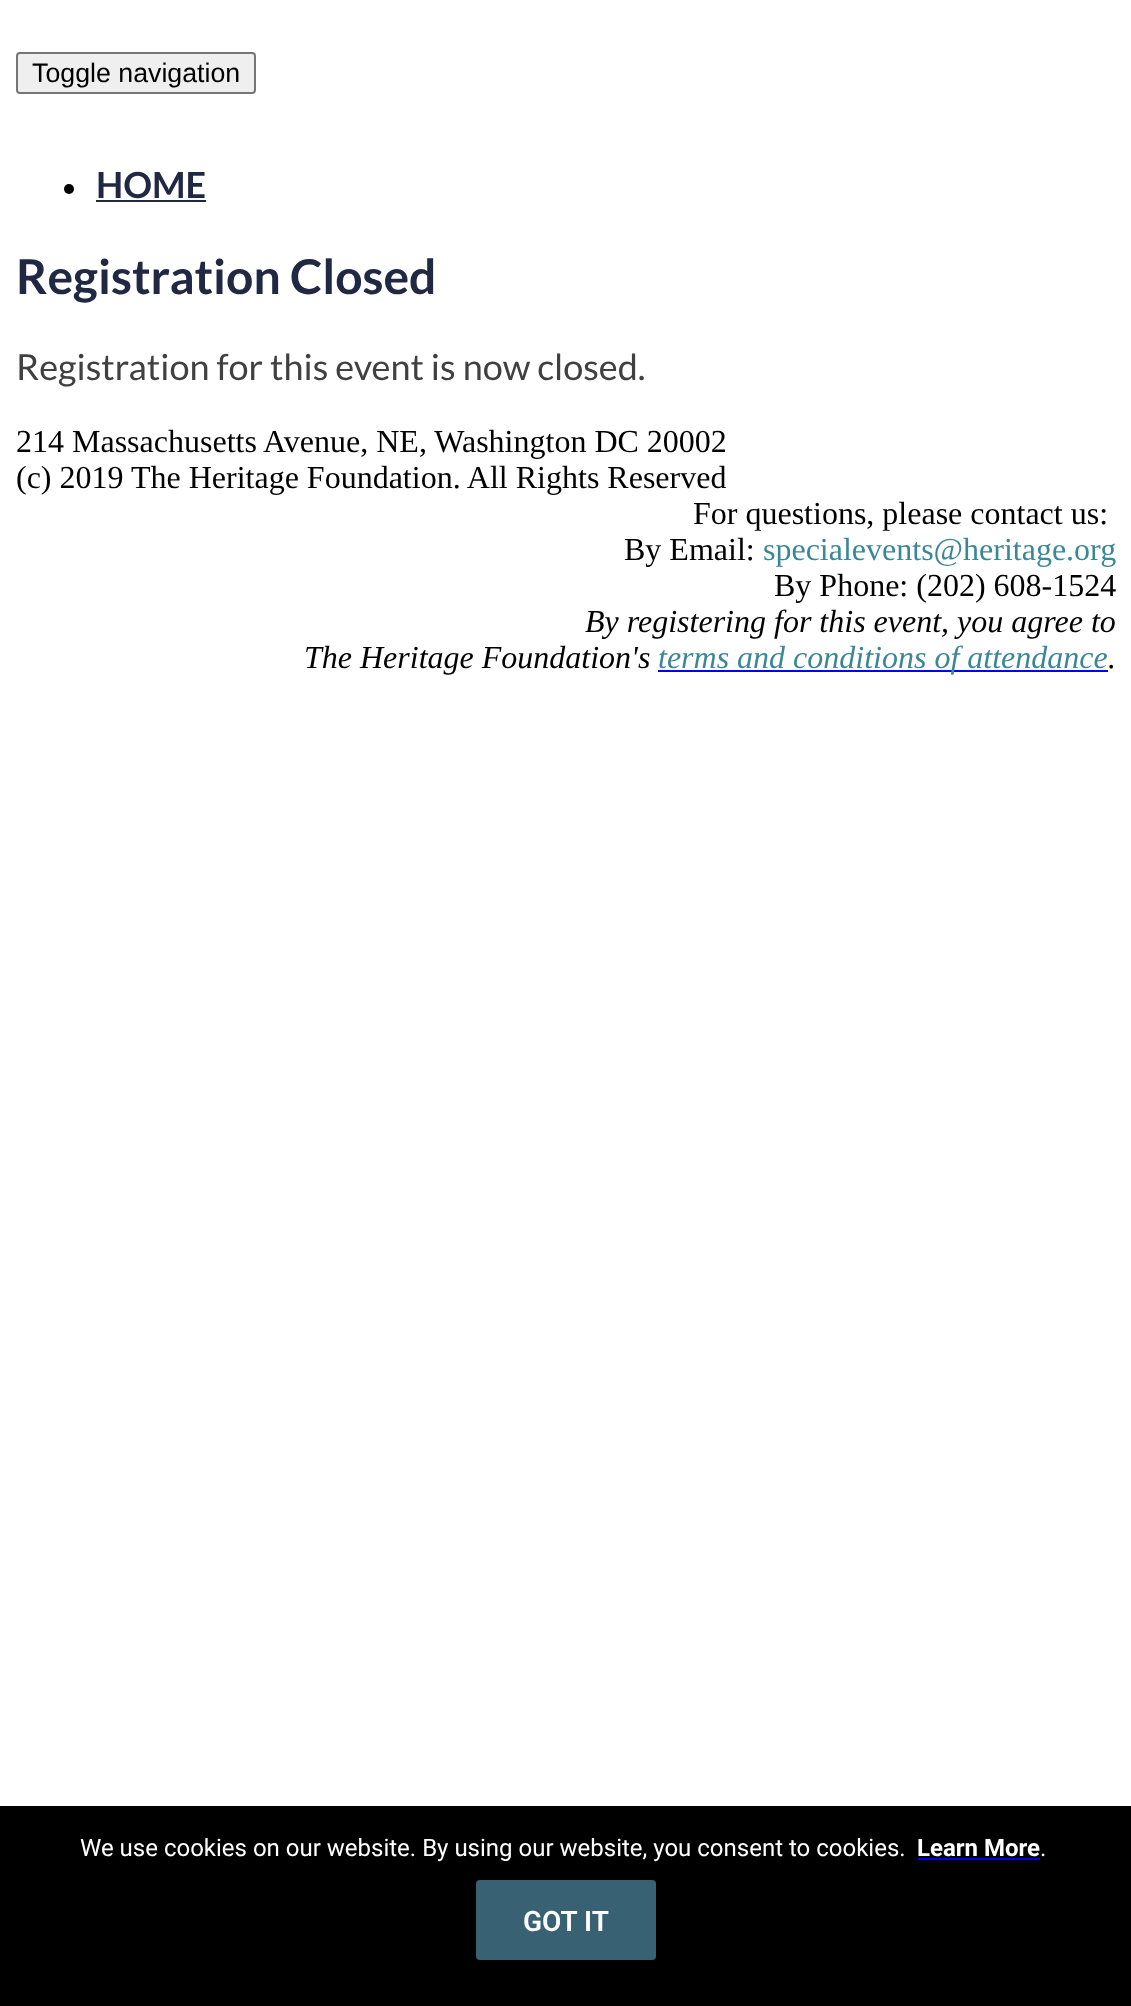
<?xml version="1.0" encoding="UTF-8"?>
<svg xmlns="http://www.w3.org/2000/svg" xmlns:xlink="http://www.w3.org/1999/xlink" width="1131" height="2006">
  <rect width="100%" height="100%" fill="#ffffff" />
  <rect x="17" y="53" width="238" height="40" rx="3" fill="#efefef" stroke="#767676" stroke-width="2" />
  <circle cx="69" cy="189" r="5" fill="#000000" />
  <rect x="96" y="200" width="110" height="2" fill="#202844" />
  <rect x="658" y="670" width="450" height="2" fill="#0000ee" />
  <rect y="1806" width="1131" height="200" fill="#000000" />
  <rect x="918" y="1858" width="122" height="2" fill="#0000ee" />
  <rect x="476" y="1880" width="180" height="80" rx="4" fill="#386274" />
  <text x="32" y="82" style="font-family: Liberation Sans; font-size: 26.75px; fill: #000000">Toggle navigation</text>
  <text x="96" y="198" style="font-family: Lato; font-size: 36px; font-weight: bold; fill: #202844">HOME</text>
  <text x="16" y="294" style="font-family: Lato; font-size: 48px; font-weight: bold; fill: #202844">Registration Closed</text>
  <text x="16" y="380" style="font-family: Lato; font-size: 36px; fill: #404040">Registration for this event is now closed.</text>
  <text x="16" y="452" style="font-family: Liberation Serif; font-size: 32px; fill: #000000">214 Massachusetts Avenue, NE, Washington DC 20002</text>
  <text x="16" y="488" style="font-family: Liberation Serif; font-size: 32px; fill: #000000">(c) 2019 The Heritage Foundation. All Rights Reserved</text>
  <text x="693" y="524" style="font-family: Liberation Serif; font-size: 32px; fill: #000000">For questions, please contact us:</text>
  <text x="624" y="560" style="font-family: Liberation Serif; font-size: 32px; fill: #000000">By Email:</text>
  <text x="763" y="560" style="font-family: Liberation Serif; font-size: 32px; fill: #3b8796">specialevents@heritage.org</text>
  <text x="774" y="596" style="font-family: Liberation Serif; font-size: 32px; fill: #000000">By Phone: (202) 608-1524</text>
  <text x="585" y="632" style="font-family: Liberation Serif; font-size: 32px; font-style: italic; fill: #000000">By registering for this event, you agree to</text>
  <text x="304" y="668" style="font-family: Liberation Serif; font-size: 32px; font-style: italic; fill: #000000">The Heritage Foundation's</text>
  <text x="658" y="668" style="font-family: Liberation Serif; font-size: 32px; font-style: italic; fill: #3b8796">terms and conditions of attendance</text>
  <text x="1108" y="668" style="font-family: Liberation Serif; font-size: 32px; font-style: italic; fill: #000000">.</text>
  <text x="80" y="1856" style="font-family: Roboto; font-size: 24px; fill: #ffffff">We use cookies on our website. By using our website, you consent to cookies.</text>
  <text x="917" y="1856" style="font-family: Roboto; font-size: 24px; font-weight: bold; fill: #ffffff">Learn More</text>
  <text x="1040" y="1856" style="font-family: Roboto; font-size: 24px; fill: #ffffff">.</text>
  <text x="523" y="1931" style="font-family: Roboto; font-size: 28px; font-weight: 600; fill: #ffffff">GOT IT</text>
</svg>
